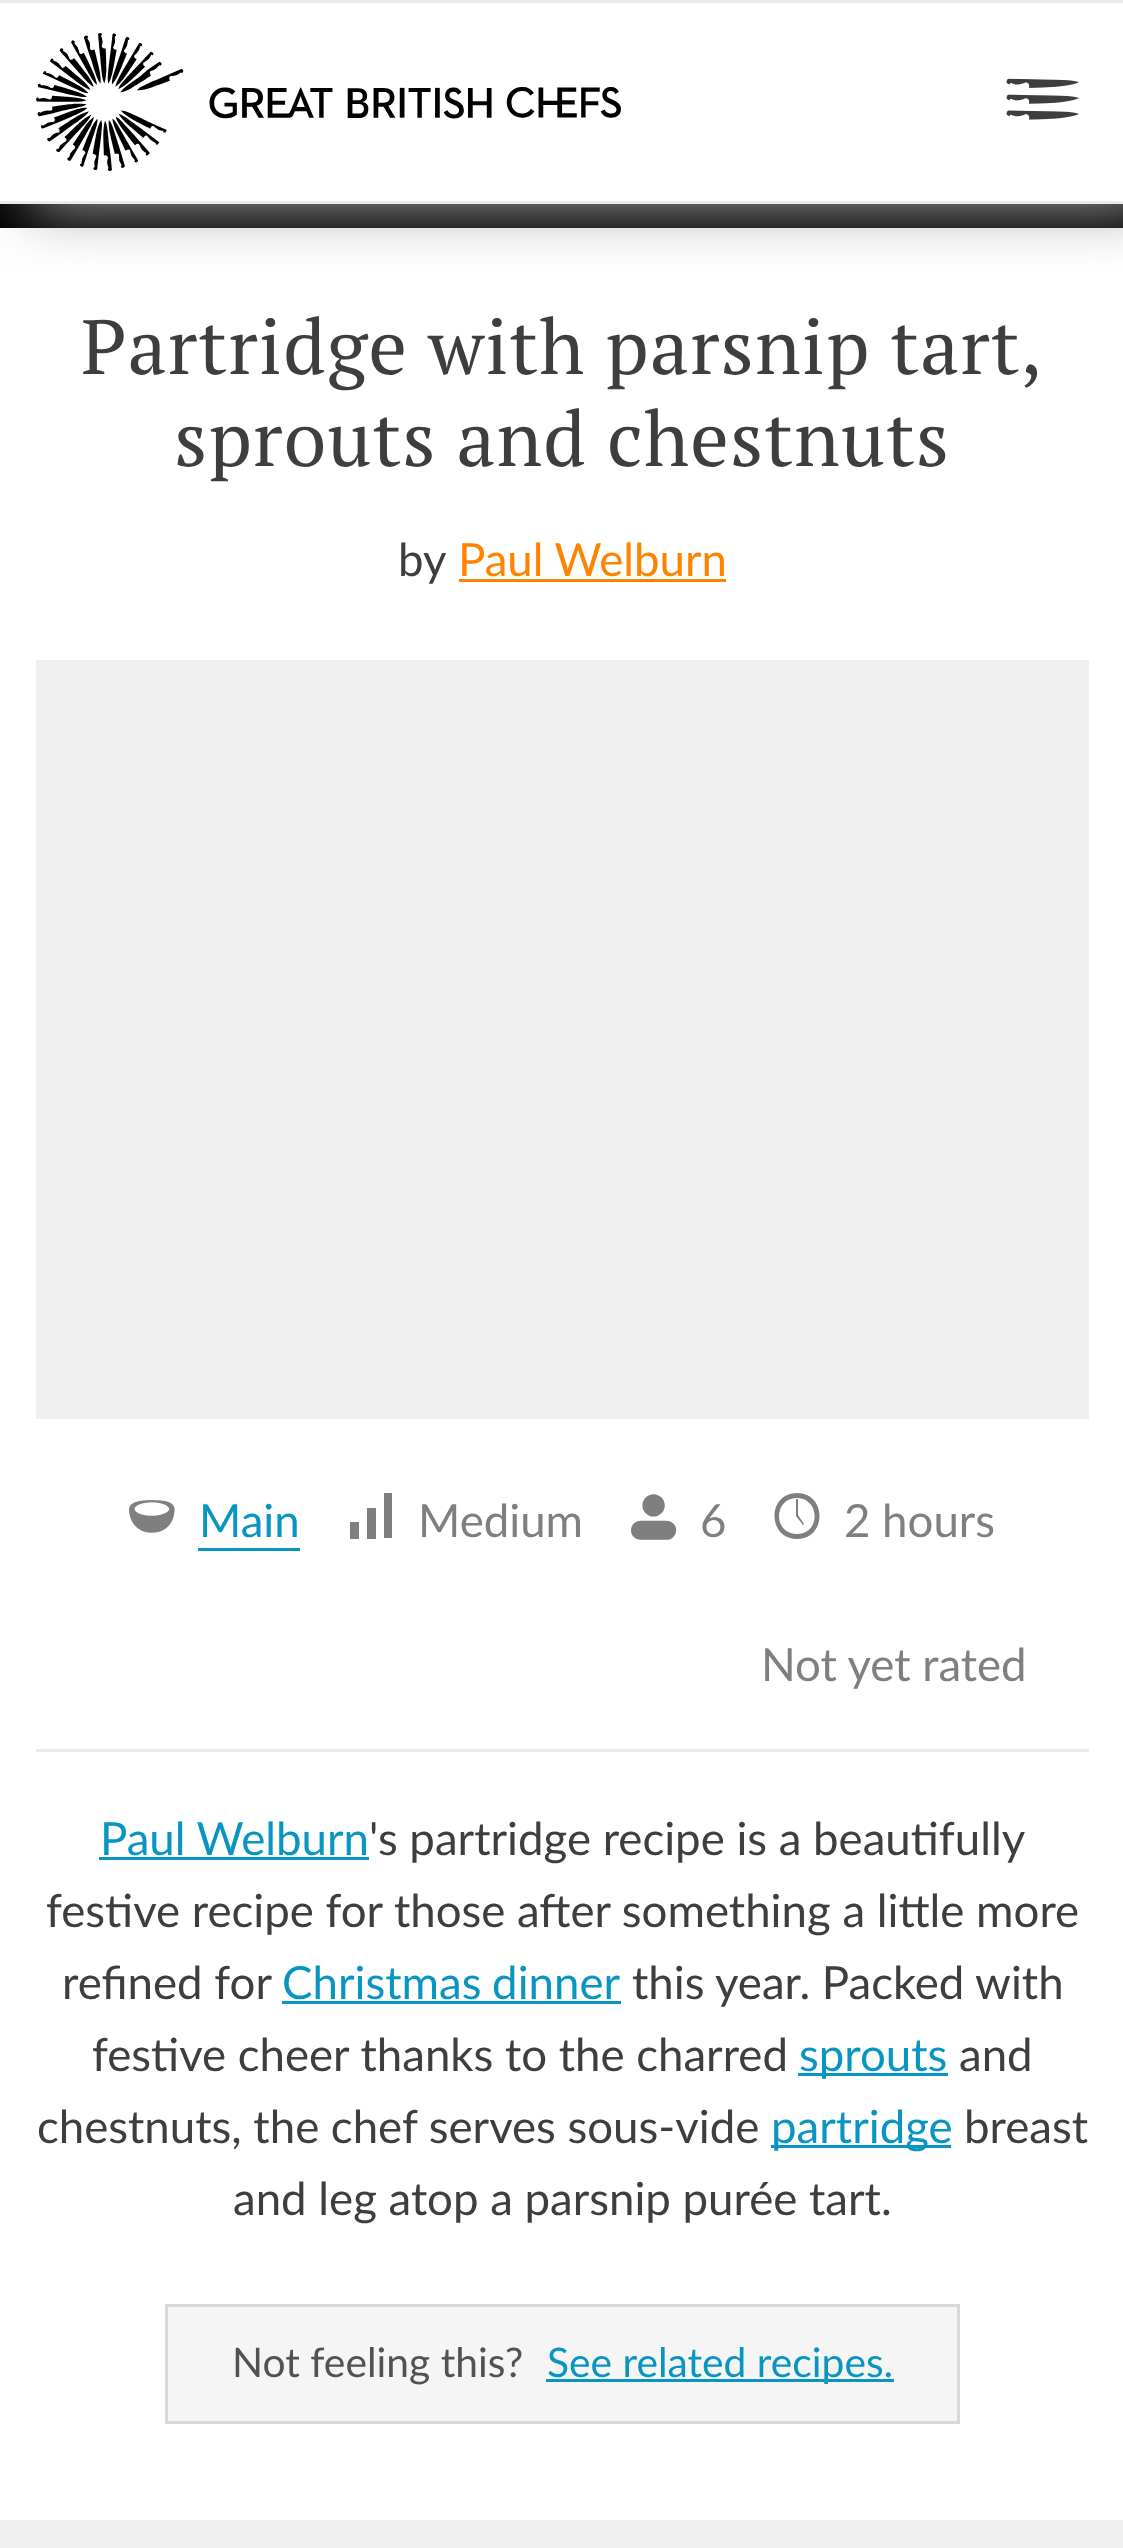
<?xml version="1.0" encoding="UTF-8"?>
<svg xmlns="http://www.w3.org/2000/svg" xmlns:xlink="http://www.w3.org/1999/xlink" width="1123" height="2548">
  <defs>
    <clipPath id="clip1"><rect x="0" y="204" width="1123" height="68" /></clipPath>
  </defs>
  <rect width="100%" height="100%" fill="#ffffff" />
  <rect y="204" width="1123" height="24" fill="#000000" />
  <g clip-path="url(#clip1)">
    <rect x="30" y="6" width="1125" height="204" fill="#999999" filter="blur(30px)" />
  </g>
  <rect y="201" width="1123" height="3" fill="#ebebeb" />
  <rect width="1123" height="3" fill="#ebebeb" />
  <image x="36" y="33" width="585" height="138" xlink:href="image1.png" />
  <image x="1006" y="78" width="73" height="42" xlink:href="image2.png" />
  <rect x="459" y="579" width="267" height="3" fill="#ff8300" />
  <rect x="36" y="660" width="1053" height="759" fill="#efefef" />
  <image x="129" y="1500" width="46" height="33" xlink:href="image3.png" />
  <rect x="198" y="1548" width="102" height="3" fill="#0895c1" />
  <path d="M 350 1522 h 9 v 17 h -9 z m 34 -29 h 8 v 45 h -8 z m -17 15 h 9 v 31 h -9 z" fill="#7f7f7f" />
  <path d="M 796 1516 l 7 9 l 1 -1 l -6 -9 v -16 h -2 z m 1 -23 c -30 0 -30 46 0 46 c 30 0 30 -46 0 -46 z m 0 41 c -24 0 -24 -36 0 -36 c 23 0 24 36 0 36 z" fill="#7f7f7f" />
  <rect x="36" y="1749" width="1053" height="3" fill="#eaeaea" />
  <rect x="99" y="1857" width="270" height="3" fill="#0895c1" />
  <rect x="282" y="2001" width="339" height="3" fill="#0895c1" />
  <rect x="798" y="2073" width="150" height="3" fill="#0895c1" />
  <rect x="771" y="2145" width="180" height="3" fill="#0895c1" />
  <rect x="166.5" y="2305.5" width="792" height="117" fill="#f5f5f5" stroke="#dad9d9" stroke-width="3" />
  <rect x="546" y="2379" width="348" height="3" fill="#0895c1" />
  <rect y="2520" width="1123" height="28" fill="#efefef" />
  <text x="81" y="374" style="font-family: PT Serif; font-size: 76.75px; letter-spacing: 1.2px; fill: #3e3e3e">Partridge with parsnip tart,</text>
  <text x="174" y="466" style="font-family: PT Serif; font-size: 76.75px; letter-spacing: 1.2px; fill: #3e3e3e">sprouts and chestnuts</text>
  <text x="398" y="576" style="font-family: Lato; font-size: 45.6px; fill: #3e3e3e">by</text>
  <text x="458" y="576" style="font-family: Lato; font-size: 45.6px; fill: #ff8300">Paul Welburn</text>
  <text x="199" y="1537" style="font-family: Lato; font-size: 45.6px; fill: #0895c1">Main</text>
  <text x="418" y="1537" style="font-family: Lato; font-size: 45.6px; fill: #7f7f7f">Medium</text>
  <text x="631" y="1537" style="font-family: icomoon; font-size: 45.6px; fill: #7f7f7f">:</text>
  <text x="700" y="1537" style="font-family: Lato; font-size: 45.6px; fill: #7f7f7f">6</text>
  <text x="844" y="1537" style="font-family: Lato; font-size: 45.6px; fill: #7f7f7f">2 hours</text>
  <text x="761" y="1681" style="font-family: Lato; font-size: 45.6px; fill: #7f7f7f">Not yet rated</text>
  <text x="100" y="1855" style="font-family: Lato; font-size: 45.6px; fill: #0895c1">Paul Welburn</text>
  <text x="369" y="1855" style="font-family: Lato; font-size: 45.6px; fill: #3e3e3e">'s partridge recipe is a beautifully</text>
  <text x="46" y="1927" style="font-family: Lato; font-size: 45.6px; fill: #3e3e3e">festive recipe for those after something a little more</text>
  <text x="62" y="1999" style="font-family: Lato; font-size: 45.6px; fill: #3e3e3e">refined for</text>
  <text x="282" y="1999" word-spacing="-1" style="font-family: Lato; font-size: 45.6px; fill: #0895c1">Christmas dinner</text>
  <text x="632" y="1999" style="font-family: Lato; font-size: 45.6px; fill: #3e3e3e">this year. Packed with</text>
  <text x="92" y="2071" style="font-family: Lato; font-size: 45.6px; fill: #3e3e3e">festive cheer thanks to the charred</text>
  <text x="799" y="2071" style="font-family: Lato; font-size: 45.6px; fill: #0895c1">sprouts</text>
  <text x="959" y="2071" style="font-family: Lato; font-size: 45.6px; fill: #3e3e3e">and</text>
  <text x="37" y="2143" style="font-family: Lato; font-size: 45.6px; fill: #3e3e3e">chestnuts, the chef serves sous-vide</text>
  <text x="771" y="2143" style="font-family: Lato; font-size: 45.6px; fill: #0895c1">partridge</text>
  <text x="964" y="2143" style="font-family: Lato; font-size: 45.6px; fill: #3e3e3e">breast</text>
  <text x="233" y="2215" style="font-family: Lato; font-size: 45.6px; fill: #3e3e3e">and leg atop a parsnip purée tart.</text>
  <text x="232" y="2377" style="font-family: Lato; font-size: 40.75px; fill: #525252">Not feeling this?</text>
  <text x="547" y="2377" style="font-family: Lato; font-size: 40.75px; fill: #0895c1">See related recipes.</text>
</svg>
